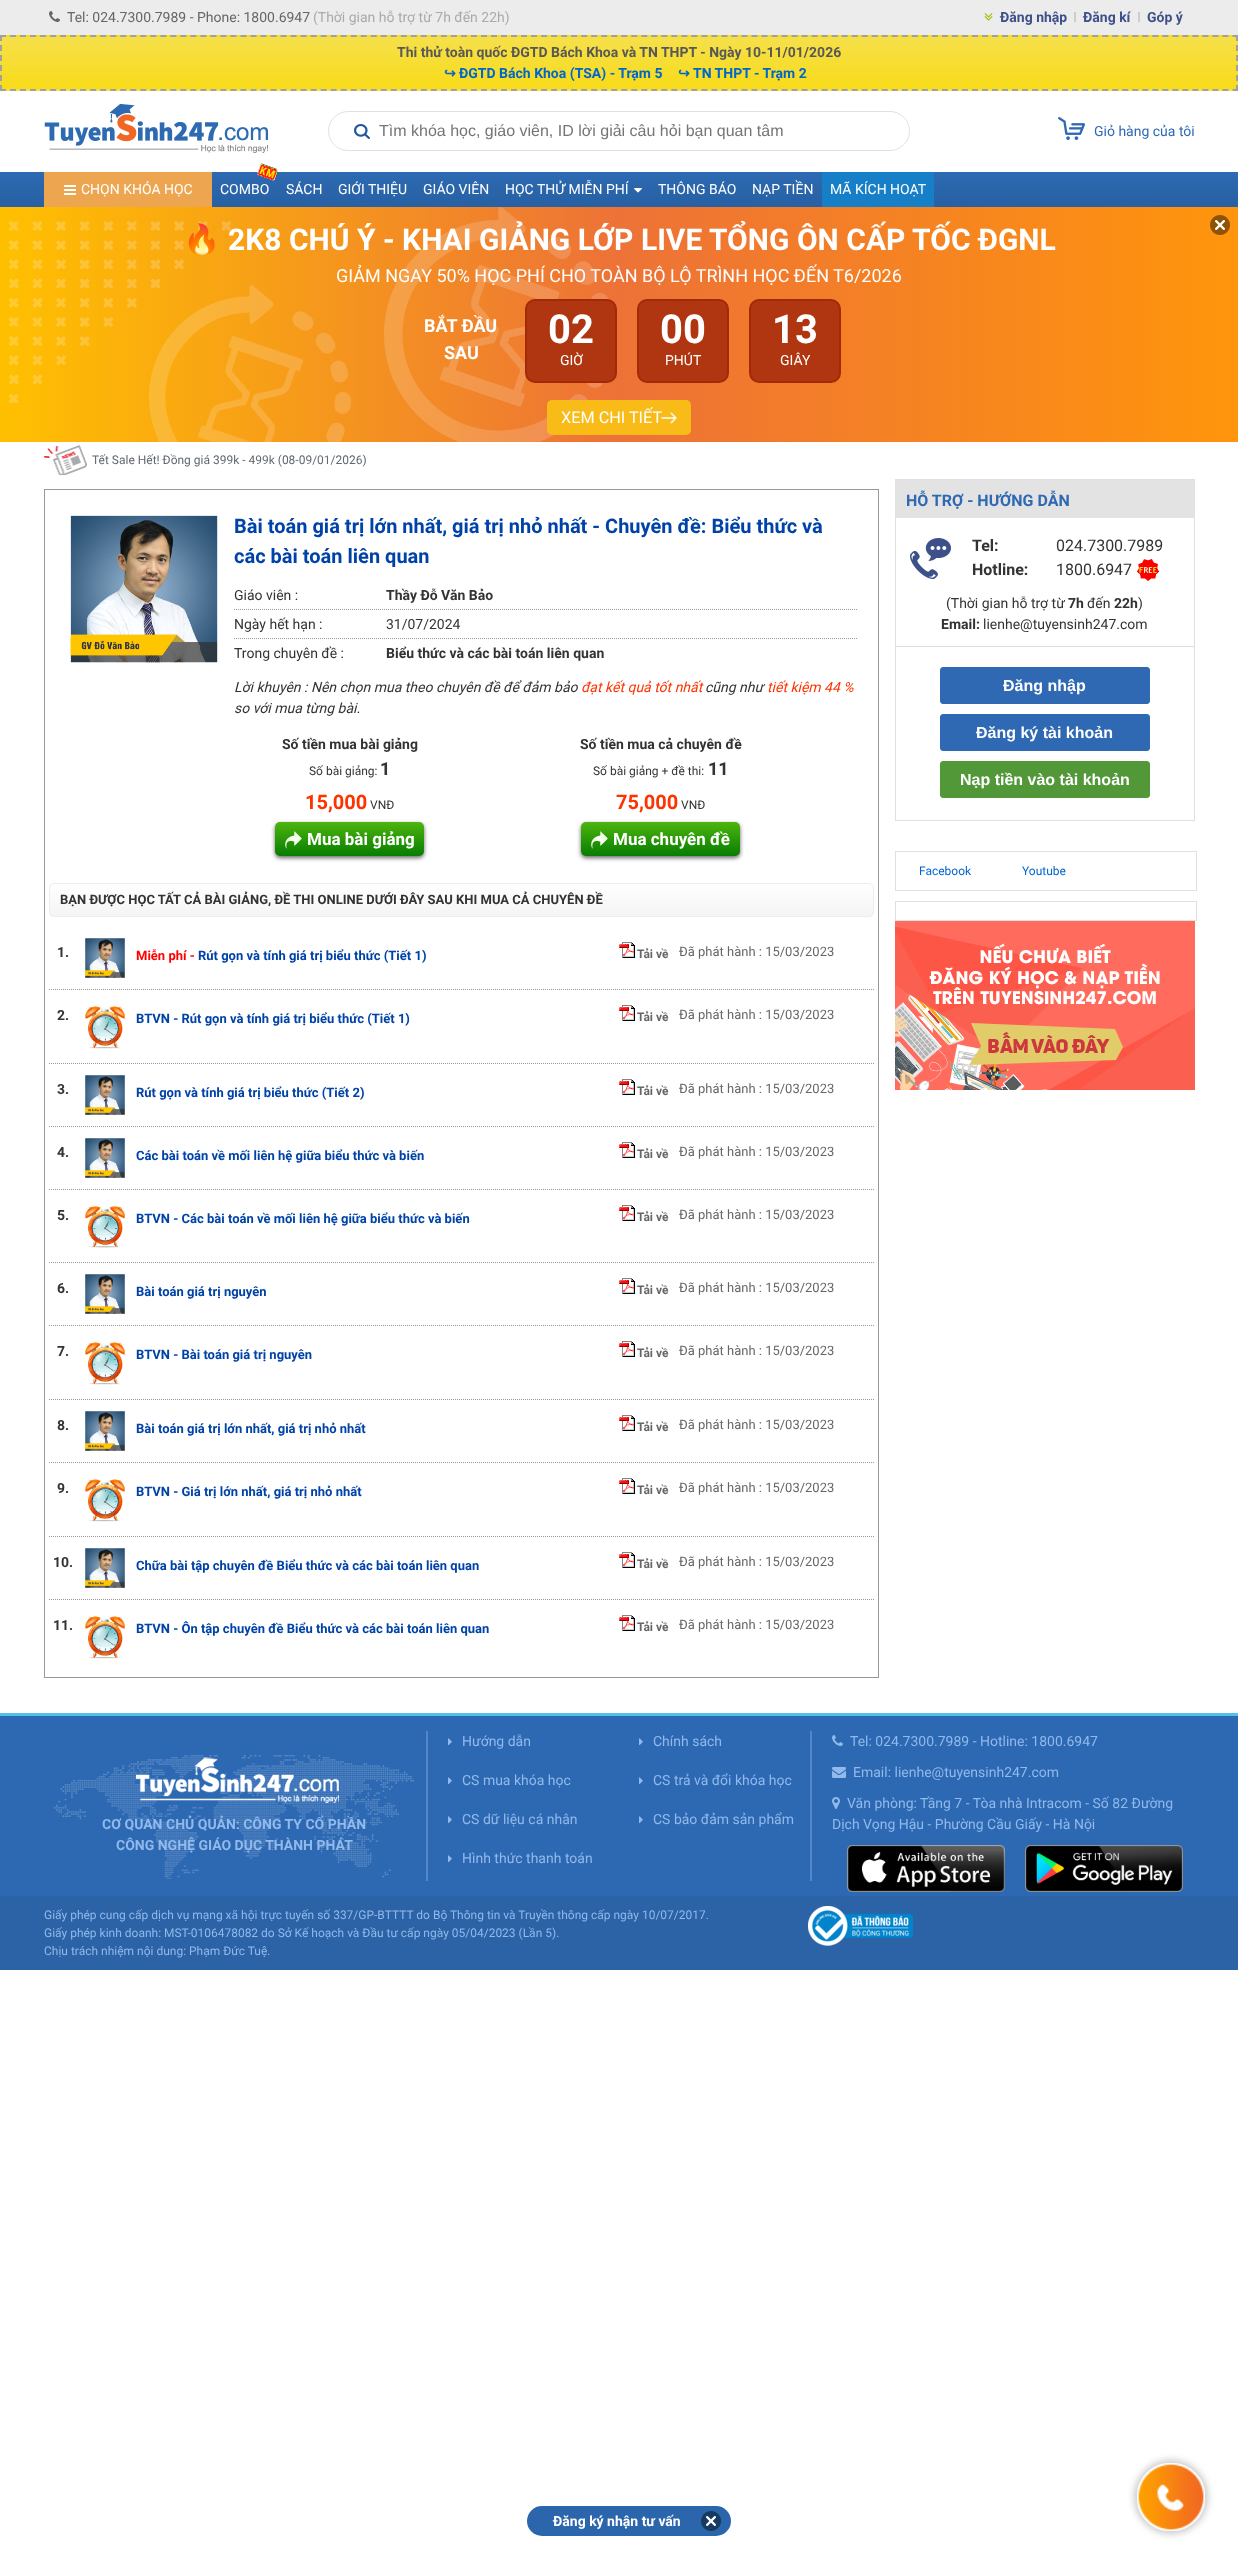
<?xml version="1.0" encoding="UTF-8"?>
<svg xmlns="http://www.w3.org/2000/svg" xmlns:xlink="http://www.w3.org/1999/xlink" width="1238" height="2564">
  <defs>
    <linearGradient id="g1" gradientUnits="userSpaceOnUse" x1="619" y1="37" x2="619" y2="-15"><stop offset="0" stop-color="#f8db19" /><stop offset="1" stop-color="#f6e04b" /></linearGradient>
    <linearGradient id="g2" gradientUnits="userSpaceOnUse" x1="619" y1="89" x2="619" y2="37"><stop offset="0" stop-color="#f8db19" /><stop offset="1" stop-color="#f6e04b" /></linearGradient>
    <linearGradient id="g3" gradientUnits="userSpaceOnUse" x1="619" y1="141" x2="619" y2="89"><stop offset="0" stop-color="#f8db19" /><stop offset="1" stop-color="#f6e04b" /></linearGradient>
    <linearGradient id="g4" gradientUnits="userSpaceOnUse" x1="619" y1="172" x2="619" y2="207"><stop offset="0" stop-color="#2d6ab2" /><stop offset="1" stop-color="#2760a3" /></linearGradient>
    <linearGradient id="g5" gradientUnits="userSpaceOnUse" x1="0" y1="325" x2="1238" y2="324"><stop offset="0" stop-color="#ffc000" /><stop offset="0.5" stop-color="#ed7237" /><stop offset="1" stop-color="#ff950c" /></linearGradient>
    <linearGradient id="g6" gradientUnits="userSpaceOnUse" x1="275" y1="822" x2="275" y2="856"><stop offset="0" stop-color="#4eb50e" /><stop offset="1" stop-color="#077d01" /></linearGradient>
    <linearGradient id="g7" gradientUnits="userSpaceOnUse" x1="581" y1="822" x2="581" y2="856"><stop offset="0" stop-color="#4eb50e" /><stop offset="1" stop-color="#077d01" /></linearGradient>
    <clipPath id="clip1"><rect x="49" y="883" width="825" height="34" rx="5" /></clipPath>
    <linearGradient id="g8" gradientUnits="userSpaceOnUse" x1="50" y1="884" x2="50" y2="916"><stop offset="0" stop-color="#ffffff" /><stop offset="1" stop-color="#f5f5f5" /></linearGradient>
    <clipPath id="clip2"><rect x="972" y="534" width="222" height="48" /></clipPath>
  </defs>
  <rect width="100%" height="100%" fill="#ffffff" />
  <rect width="1238" height="35" fill="#ececec" />
  <image x="49" y="11" width="11" height="11" xlink:href="image1.png" />
  <image x="984" y="13" width="9" height="8" xlink:href="image2.png" />
  <rect x="1074" y="12" width="2" height="10" fill="#cdcdcd" />
  <rect x="1138" y="12" width="2" height="10" fill="#cdcdcd" />
  <rect y="35" width="1238" height="2" fill="url(#g1)" />
  <rect y="37" width="1238" height="52" fill="url(#g2)" />
  <rect y="89" width="1238" height="2" fill="url(#g3)" />
  <path d="M 0 36 h 1238" fill="none" stroke="#a0a0a0" stroke-width="2" stroke-dasharray="6 4.02" />
  <path d="M 1237 35 v 56" fill="none" stroke="#a0a0a0" stroke-width="2" stroke-dasharray="6 4" />
  <path d="M 0 90 h 1238" fill="none" stroke="#a0a0a0" stroke-width="2" stroke-dasharray="6 4.02" />
  <path d="M 1 35 v 56" fill="none" stroke="#a0a0a0" stroke-width="2" stroke-dasharray="6 4" />
  <image x="44" y="103" width="224" height="50" xlink:href="image3.png" />
  <rect x="328.5" y="111.5" width="581" height="39" rx="19.5" fill="none" stroke="#e1e1e1" />
  <image x="354" y="124" width="16" height="15" xlink:href="image4.png" />
  <image x="1058" y="117" width="27" height="23" xlink:href="image5.png" />
  <rect y="172" width="1238" height="35" fill="url(#g4)" />
  <rect x="44" y="172" width="168" height="35" fill="#eda550" />
  <image x="64" y="185" width="12" height="10" xlink:href="image6.png" />
  <image x="257" y="163" width="21" height="18" xlink:href="image7.png" />
  <image x="257" y="164" width="21" height="17" xlink:href="image8.png" />
  <image x="634" y="188" width="8" height="5" xlink:href="image9.png" />
  <rect x="822" y="172" width="112" height="35" fill="#167fc8" />
  <rect y="207" width="1238" height="235" fill="url(#g5)" />
  <rect x="638" y="300" width="90" height="82" rx="9" fill="#b03611" stroke="#a22a06" stroke-width="2" />
  <rect x="750" y="300" width="90" height="82" rx="9" fill="#b03611" stroke="#a22a06" stroke-width="2" />
  <image x="1210" y="215" width="20" height="20" xlink:href="image12.png" />
  <image x="44" y="445" width="43" height="30" xlink:href="image13.png" />
  <rect x="44.5" y="489.5" width="834" height="1188" fill="none" stroke="#999999" />
  <image x="70" y="515" width="148" height="148" xlink:href="image14.png" />
  <path d="M 234 609.5 h 623" fill="none" stroke="#999999" stroke-dasharray="1 1" />
  <path d="M 234 638.5 h 623" fill="none" stroke="#999999" stroke-dasharray="1 1" />
  <rect x="275" y="824" width="149" height="34" rx="5" fill="#666666" filter="blur(2px)" />
  <rect x="275" y="822" width="149" height="34" rx="5" fill="url(#g6)" />
  <image x="285" y="831" width="17" height="18" xlink:href="image15.png" />
  <rect x="581" y="824" width="159" height="34" rx="5" fill="#666666" filter="blur(2px)" />
  <rect x="581" y="822" width="159" height="34" rx="5" fill="url(#g7)" />
  <image x="591" y="831" width="17" height="18" xlink:href="image15.png" />
  <g clip-path="url(#clip1)">
    <rect x="49" y="884" width="825" height="32" fill="url(#g8)" />
  </g>
  <rect x="49.5" y="883.5" width="824" height="33" rx="4.5" fill="none" stroke="#ededed" />
  <path d="M 49 989.5 h 825" fill="none" stroke="#999999" stroke-dasharray="1 1" />
  <image x="85" y="938" width="40" height="40" xlink:href="image16.png" />
  <image x="619" y="942" width="16" height="16" xlink:href="image17.png" />
  <path d="M 49 1063.5 h 825" fill="none" stroke="#999999" stroke-dasharray="1 1" />
  <image x="85" y="1006" width="40" height="43" xlink:href="image18.png" />
  <image x="619" y="1005" width="16" height="16" xlink:href="image17.png" />
  <path d="M 49 1126.5 h 825" fill="none" stroke="#999999" stroke-dasharray="1 1" />
  <image x="85" y="1075" width="40" height="40" xlink:href="image16.png" />
  <image x="619" y="1079" width="16" height="16" xlink:href="image17.png" />
  <path d="M 49 1189.5 h 825" fill="none" stroke="#999999" stroke-dasharray="1 1" />
  <image x="85" y="1138" width="40" height="40" xlink:href="image19.png" />
  <image x="619" y="1142" width="16" height="16" xlink:href="image17.png" />
  <path d="M 49 1262.5 h 825" fill="none" stroke="#999999" stroke-dasharray="1 1" />
  <image x="85" y="1206" width="40" height="42" xlink:href="image20.png" />
  <image x="619" y="1205" width="16" height="16" xlink:href="image17.png" />
  <path d="M 49 1325.5 h 825" fill="none" stroke="#999999" stroke-dasharray="1 1" />
  <image x="85" y="1274" width="40" height="40" xlink:href="image21.png" />
  <image x="619" y="1278" width="16" height="16" xlink:href="image17.png" />
  <path d="M 49 1399.5 h 825" fill="none" stroke="#999999" stroke-dasharray="1 1" />
  <image x="85" y="1342" width="40" height="43" xlink:href="image18.png" />
  <image x="619" y="1341" width="16" height="16" xlink:href="image17.png" />
  <path d="M 49 1462.5 h 825" fill="none" stroke="#999999" stroke-dasharray="1 1" />
  <image x="85" y="1411" width="40" height="40" xlink:href="image16.png" />
  <image x="619" y="1415" width="16" height="16" xlink:href="image17.png" />
  <path d="M 49 1536.5 h 825" fill="none" stroke="#999999" stroke-dasharray="1 1" />
  <image x="85" y="1479" width="40" height="43" xlink:href="image18.png" />
  <image x="619" y="1478" width="16" height="16" xlink:href="image17.png" />
  <path d="M 49 1599.5 h 825" fill="none" stroke="#999999" stroke-dasharray="1 1" />
  <image x="85" y="1548" width="40" height="40" xlink:href="image16.png" />
  <image x="619" y="1552" width="16" height="16" xlink:href="image17.png" />
  <image x="85" y="1616" width="40" height="43" xlink:href="image18.png" />
  <image x="619" y="1615" width="16" height="16" xlink:href="image17.png" />
  <rect x="895.5" y="479.5" width="299" height="341" fill="none" stroke="#e0e0e0" />
  <rect x="895" y="480" width="300" height="38" fill="#e3e3e3" />
  <image x="910" y="538" width="41" height="41" xlink:href="image22.png" />
  <image x="1137" y="559" width="22" height="22" xlink:href="image23.png" />
  <rect x="896" y="646" width="298" height="1" fill="#dddddd" />
  <rect x="940.5" y="667.5" width="209" height="36" rx="2.5" fill="#2f69b3" stroke="#2f69b3" />
  <rect x="940.5" y="714.5" width="209" height="36" rx="2.5" fill="#2f69b3" stroke="#2f69b3" />
  <rect x="940.5" y="761.5" width="209" height="36" rx="2.5" fill="#529839" stroke="#529839" />
  <rect x="895.5" y="851.5" width="301" height="39" fill="none" stroke="#e0e0e0" />
  <rect x="895.5" y="901.5" width="301" height="19" fill="none" stroke="#e0e0e0" />
  <image x="895" y="921" width="300" height="169" xlink:href="image24.png" />
  <rect x="527" y="2506" width="204" height="30" rx="15" fill="#2b66ac" />
  <image x="701" y="2511" width="20" height="20" xlink:href="image25.png" />
  <rect y="1716" width="1238" height="180" fill="#2d69b3" />
  <rect y="1713" width="1238" height="3" fill="#53c1ea" />
  <image x="54" y="1755" width="360" height="124" xlink:href="image26.png" />
  <rect x="426" y="1731" width="2" height="150" fill="#5387c7" />
  <image x="136" y="1757" width="203" height="46" xlink:href="image27.png" />
  <rect x="810" y="1731" width="2" height="150" fill="#5387c7" />
  <image x="448" y="1738" width="4" height="8" xlink:href="image28.png" />
  <image x="639" y="1738" width="4" height="8" xlink:href="image28.png" />
  <image x="448" y="1777" width="4" height="8" xlink:href="image28.png" />
  <image x="639" y="1777" width="4" height="8" xlink:href="image28.png" />
  <image x="448" y="1816" width="4" height="8" xlink:href="image28.png" />
  <image x="639" y="1816" width="4" height="8" xlink:href="image28.png" />
  <image x="448" y="1855" width="4" height="8" xlink:href="image28.png" />
  <image x="832" y="1735" width="11" height="11" xlink:href="image29.png" />
  <image x="832" y="1767" width="14" height="11" xlink:href="image30.png" />
  <image x="832" y="1797" width="8" height="12" xlink:href="image31.png" />
  <image x="847" y="1845" width="158" height="47" xlink:href="image32.png" />
  <image x="1025" y="1845" width="158" height="47" xlink:href="image33.png" />
  <rect y="1896" width="1238" height="74" fill="#2c62a6" />
  <image x="808" y="1906" width="105" height="40" xlink:href="image34.png" />
  <rect x="1134" y="2460" width="74" height="74" rx="37" fill="#c9c9c9" filter="blur(3.5px)" />
  <image x="1137" y="2463" width="68" height="68" xlink:href="image35.png" />
  <text x="67" y="22" style="font-family: Roboto; font-size: 14px; fill: #666666">Tel: 024.7300.7989 - Phone: 1800.6947</text>
  <text x="313" y="22" style="font-family: Roboto; font-size: 14px; fill: #aaaaaa">(Thời gian hỗ trợ từ 7h đến 22h)</text>
  <text x="1000" y="22" style="font-family: Roboto; font-size: 14px; font-weight: bold; fill: #3e508a">Đăng nhập</text>
  <text x="1083" y="22" style="font-family: Roboto; font-size: 14px; font-weight: bold; fill: #3e508a">Đăng kí</text>
  <text x="1147" y="22" style="font-family: Roboto; font-size: 14px; font-weight: bold; fill: #3e508a">Góp ý</text>
  <text x="397" y="57" style="font-family: Roboto; font-size: 14px; font-weight: bold; fill: #585858">Thi thử toàn quốc ĐGTD Bách Khoa và TN THPT - Ngày 10-11/01/2026</text>
  <text x="444" y="78" style="font-family: DejaVu Sans; font-size: 14px; font-weight: bold; fill: #0066cc">↪</text>
  <text x="459" y="78" style="font-family: Roboto; font-size: 14px; font-weight: bold; fill: #0066cc">ĐGTD Bách Khoa (TSA) - Trạm 5</text>
  <text x="678" y="78" style="font-family: DejaVu Sans; font-size: 14px; font-weight: bold; fill: #0066cc">↪</text>
  <text x="693" y="78" style="font-family: Roboto; font-size: 14px; font-weight: bold; fill: #0066cc">TN THPT - Trạm 2</text>
  <text x="379" y="136" style="font-family: Liberation Sans; font-size: 16px; fill: #757575">Tìm khóa học, giáo viên, ID lời giải câu hỏi bạn quan tâm</text>
  <text x="1094" y="136" style="font-family: Roboto; font-size: 14px; fill: #2f69b3">Giỏ hàng của tôi</text>
  <text x="81" y="194" style="font-family: Roboto; font-size: 14px; fill: #ffffff">CHỌN KHÓA HỌC</text>
  <text x="220" y="194" style="font-family: Roboto; font-size: 14px; fill: #ffffff">COMBO</text>
  <text x="286" y="194" style="font-family: Roboto; font-size: 14px; fill: #ffffff">SÁCH</text>
  <text x="338" y="194" style="font-family: Roboto; font-size: 14px; fill: #ffffff">GIỚI THIỆU</text>
  <text x="423" y="194" style="font-family: Roboto; font-size: 14px; fill: #ffffff">GIÁO VIÊN</text>
  <text x="505" y="194" style="font-family: Roboto; font-size: 14px; fill: #ffffff">HỌC THỬ MIỄN PHÍ</text>
  <text x="658" y="194" style="font-family: Roboto; font-size: 14px; fill: #ffffff">THÔNG BÁO</text>
  <text x="752" y="194" style="font-family: Roboto; font-size: 14px; fill: #ffffff">NẠP TIỀN</text>
  <text x="830" y="194" style="font-family: Roboto; font-size: 14px; fill: #ffffff">MÃ KÍCH HOẠT</text>
  <text x="660" y="343" style="font-family: Roboto; font-size: 40px; font-weight: bold; fill: #ffffff">00</text>
  <text x="665" y="365" style="font-family: Roboto; font-size: 14px; fill: #ffffff">PHÚT</text>
  <text x="772" y="343" style="font-family: Roboto; font-size: 40px; font-weight: bold; fill: #ffffff">13</text>
  <text x="780" y="365" style="font-family: Roboto; font-size: 14px; fill: #ffffff">GIÂY</text>
  <text x="92" y="464" style="font-family: Roboto; font-size: 12px; fill: #616770">Tết Sale Hết! Đồng giá 399k - 499k (08-09/01/2026)</text>
  <image x="9" y="207" width="600" height="250" xlink:href="image10.png" />
  <rect x="526" y="300" width="90" height="82" rx="9" fill="#b03611" stroke="#a22a06" stroke-width="2" />
  <text x="560" y="365" style="font-family: Roboto; font-size: 14px; fill: #ffffff">GIỜ</text>
  <text x="336" y="282" style="font-family: Roboto; font-size: 18px; fill: #ffffff">GIẢM NGAY 50% HỌC PHÍ CHO TOÀN BỘ LỘ TRÌNH HỌC ĐẾN T6/2026</text>
  <text x="228" y="250" style="font-family: Roboto; font-size: 30px; font-weight: bold; fill: #ffffff">2K8 CHÚ Ý - KHAI GIẢNG LỚP LIVE TỔNG ÔN CẤP TỐC ĐGNL</text>
  <text x="183" y="250" style="font-family: Noto Color Emoji; font-size: 30px; font-weight: bold; fill: #ffffff">🔥</text>
  <rect x="547" y="400" width="144" height="35" rx="5" fill="#f8bb18" />
  <text x="561" y="423" style="font-family: Roboto; font-size: 16.25px; fill: #ffffff">XEM CHI TIẾT</text>
  <image x="661" y="412" width="16" height="12" xlink:href="image11.png" />
  <text x="548" y="343" style="font-family: Roboto; font-size: 40px; font-weight: bold; fill: #ffffff">02</text>
  <text x="444" y="359" style="font-family: Roboto; font-size: 18px; font-weight: bold; fill: #ffffff">SAU</text>
  <text x="424" y="332" style="font-family: Roboto; font-size: 18px; font-weight: bold; fill: #ffffff">BẮT ĐẦU</text>
  <text x="234" y="533" style="font-family: Roboto; font-size: 20px; font-weight: bold; fill: #0043a8">Bài toán giá trị lớn nhất, giá trị nhỏ nhất - Chuyên đề: Biểu thức và</text>
  <text x="234" y="563" style="font-family: Roboto; font-size: 20px; font-weight: bold; fill: #0043a8">các bài toán liên quan</text>
  <text x="234" y="600" style="font-family: Roboto; font-size: 14px; fill: #333333">Giáo viên :</text>
  <text x="386" y="600" style="font-family: Roboto; font-size: 14px; font-weight: bold; fill: #333333">Thầy Đỗ Văn Bảo</text>
  <text x="234" y="629" style="font-family: Roboto; font-size: 14px; fill: #333333">Ngày hết hạn :</text>
  <text x="386" y="629" style="font-family: Roboto; font-size: 14px; fill: #333333">31/07/2024</text>
  <text x="234" y="658" style="font-family: Roboto; font-size: 14px; fill: #333333">Trong chuyên đề :</text>
  <text x="386" y="658" style="font-family: Roboto; font-size: 14px; font-weight: bold; fill: #333333">Biểu thức và các bài toán liên quan</text>
  <text x="234" y="692" style="font-family: Roboto; font-size: 14px; font-style: italic; fill: #333333">Lời khuyên : Nên chọn mua theo chuyên đề để đảm bảo</text>
  <text x="581" y="692" style="font-family: Roboto; font-size: 14px; font-style: italic; fill: #ff3300">đạt kết quả tốt nhất</text>
  <text x="705" y="692" style="font-family: Roboto; font-size: 14px; font-style: italic; fill: #333333">cũng như</text>
  <text x="767" y="692" style="font-family: Roboto; font-size: 14px; font-style: italic; fill: #ff3300">tiết kiệm 44 %</text>
  <text x="234" y="713" style="font-family: Roboto; font-size: 14px; font-style: italic; fill: #333333">so với mua từng bài.</text>
  <text x="282" y="749" style="font-family: Roboto; font-size: 14px; font-weight: bold; fill: #333333">Số tiền mua bài giảng</text>
  <text x="309" y="775" style="font-family: Roboto; font-size: 12px; fill: #333333">Số bài giảng:</text>
  <text x="380" y="775" style="font-family: Roboto; font-size: 18px; font-weight: bold; fill: #333333">1</text>
  <text x="305" y="809" style="font-family: Roboto; font-size: 20px; font-weight: bold; fill: #ff3300">15,000</text>
  <text x="370" y="809" style="font-family: Roboto; font-size: 12px; fill: #333333">VNĐ</text>
  <text x="307" y="845" style="font-family: Roboto; font-size: 17px; font-weight: bold; fill: #ffffff">Mua bài giảng</text>
  <text x="580" y="749" style="font-family: Roboto; font-size: 14px; font-weight: bold; fill: #333333">Số tiền mua cả chuyên đề</text>
  <text x="593" y="775" style="font-family: Roboto; font-size: 12px; fill: #333333">Số bài giảng + đề thi:</text>
  <text x="708" y="775" style="font-family: Roboto; font-size: 18px; font-weight: bold; fill: #333333">11</text>
  <text x="616" y="809" style="font-family: Roboto; font-size: 20px; font-weight: bold; fill: #ff3300">75,000</text>
  <text x="681" y="809" style="font-family: Roboto; font-size: 12px; fill: #333333">VNĐ</text>
  <text x="613" y="845" style="font-family: Roboto; font-size: 17px; font-weight: bold; fill: #ffffff">Mua chuyên đề</text>
  <text x="60" y="904" style="font-family: Roboto; font-size: 13px; font-weight: bold; fill: #333333">BẠN ĐƯỢC HỌC TẤT CẢ BÀI GIẢNG, ĐỀ THI ONLINE DƯỚI ĐÂY SAU KHI MUA CẢ CHUYÊN ĐỀ</text>
  <text x="57" y="957" style="font-family: Roboto; font-size: 14px; font-weight: bold; fill: #333333">1.</text>
  <text x="136" y="960" style="font-family: Roboto; font-size: 13px; font-weight: bold; fill: #ff0000">Miễn phí -</text>
  <text x="198" y="960" style="font-family: Roboto; font-size: 13px; font-weight: bold; fill: #0043a8">Rút gọn và tính giá trị biểu thức (Tiết 1)</text>
  <text x="637" y="958" style="font-family: Roboto; font-size: 12px; font-weight: bold; fill: #666666">Tải về</text>
  <text x="679" y="956" style="font-family: Roboto; font-size: 13px; fill: #666666">Đã phát hành : 15/03/2023</text>
  <text x="57" y="1020" style="font-family: Roboto; font-size: 14px; font-weight: bold; fill: #333333">2.</text>
  <text x="136" y="1023" style="font-family: Roboto; font-size: 13px; font-weight: bold; fill: #0043a8">BTVN - Rút gọn và tính giá trị biểu thức (Tiết 1)</text>
  <text x="637" y="1021" style="font-family: Roboto; font-size: 12px; font-weight: bold; fill: #666666">Tải về</text>
  <text x="679" y="1019" style="font-family: Roboto; font-size: 13px; fill: #666666">Đã phát hành : 15/03/2023</text>
  <text x="57" y="1094" style="font-family: Roboto; font-size: 14px; font-weight: bold; fill: #333333">3.</text>
  <text x="136" y="1097" style="font-family: Roboto; font-size: 13px; font-weight: bold; fill: #0043a8">Rút gọn và tính giá trị biểu thức (Tiết 2)</text>
  <text x="637" y="1095" style="font-family: Roboto; font-size: 12px; font-weight: bold; fill: #666666">Tải về</text>
  <text x="679" y="1093" style="font-family: Roboto; font-size: 13px; fill: #666666">Đã phát hành : 15/03/2023</text>
  <text x="57" y="1157" style="font-family: Roboto; font-size: 14px; font-weight: bold; fill: #333333">4.</text>
  <text x="136" y="1160" style="font-family: Roboto; font-size: 13px; font-weight: bold; fill: #0043a8">Các bài toán về mối liên hệ giữa biểu thức và biến</text>
  <text x="637" y="1158" style="font-family: Roboto; font-size: 12px; font-weight: bold; fill: #666666">Tải về</text>
  <text x="679" y="1156" style="font-family: Roboto; font-size: 13px; fill: #666666">Đã phát hành : 15/03/2023</text>
  <text x="57" y="1220" style="font-family: Roboto; font-size: 14px; font-weight: bold; fill: #333333">5.</text>
  <text x="136" y="1223" style="font-family: Roboto; font-size: 13px; font-weight: bold; fill: #0043a8">BTVN - Các bài toán về mối liên hệ giữa biểu thức và biến</text>
  <text x="637" y="1221" style="font-family: Roboto; font-size: 12px; font-weight: bold; fill: #666666">Tải về</text>
  <text x="679" y="1219" style="font-family: Roboto; font-size: 13px; fill: #666666">Đã phát hành : 15/03/2023</text>
  <text x="57" y="1293" style="font-family: Roboto; font-size: 14px; font-weight: bold; fill: #333333">6.</text>
  <text x="136" y="1296" style="font-family: Roboto; font-size: 13px; font-weight: bold; fill: #0043a8">Bài toán giá trị nguyên</text>
  <text x="637" y="1294" style="font-family: Roboto; font-size: 12px; font-weight: bold; fill: #666666">Tải về</text>
  <text x="679" y="1292" style="font-family: Roboto; font-size: 13px; fill: #666666">Đã phát hành : 15/03/2023</text>
  <text x="57" y="1356" style="font-family: Roboto; font-size: 14px; font-weight: bold; fill: #333333">7.</text>
  <text x="136" y="1359" style="font-family: Roboto; font-size: 13px; font-weight: bold; fill: #0043a8">BTVN - Bài toán giá trị nguyên</text>
  <text x="637" y="1357" style="font-family: Roboto; font-size: 12px; font-weight: bold; fill: #666666">Tải về</text>
  <text x="679" y="1355" style="font-family: Roboto; font-size: 13px; fill: #666666">Đã phát hành : 15/03/2023</text>
  <text x="57" y="1430" style="font-family: Roboto; font-size: 14px; font-weight: bold; fill: #333333">8.</text>
  <text x="136" y="1433" style="font-family: Roboto; font-size: 13px; font-weight: bold; fill: #0043a8">Bài toán giá trị lớn nhất, giá trị nhỏ nhất</text>
  <text x="637" y="1431" style="font-family: Roboto; font-size: 12px; font-weight: bold; fill: #666666">Tải về</text>
  <text x="679" y="1429" style="font-family: Roboto; font-size: 13px; fill: #666666">Đã phát hành : 15/03/2023</text>
  <text x="57" y="1493" style="font-family: Roboto; font-size: 14px; font-weight: bold; fill: #333333">9.</text>
  <text x="136" y="1496" style="font-family: Roboto; font-size: 13px; font-weight: bold; fill: #0043a8">BTVN - Giá trị lớn nhất, giá trị nhỏ nhất</text>
  <text x="637" y="1494" style="font-family: Roboto; font-size: 12px; font-weight: bold; fill: #666666">Tải về</text>
  <text x="679" y="1492" style="font-family: Roboto; font-size: 13px; fill: #666666">Đã phát hành : 15/03/2023</text>
  <text x="53" y="1567" style="font-family: Roboto; font-size: 14px; font-weight: bold; fill: #333333">10.</text>
  <text x="136" y="1570" style="font-family: Roboto; font-size: 13px; font-weight: bold; fill: #0043a8">Chữa bài tập chuyên đề Biểu thức và các bài toán liên quan</text>
  <text x="637" y="1568" style="font-family: Roboto; font-size: 12px; font-weight: bold; fill: #666666">Tải về</text>
  <text x="679" y="1566" style="font-family: Roboto; font-size: 13px; fill: #666666">Đã phát hành : 15/03/2023</text>
  <text x="53" y="1630" style="font-family: Roboto; font-size: 14px; font-weight: bold; fill: #333333">11.</text>
  <text x="136" y="1633" style="font-family: Roboto; font-size: 13px; font-weight: bold; fill: #0043a8">BTVN - Ôn tập chuyên đề Biểu thức và các bài toán liên quan</text>
  <text x="637" y="1631" style="font-family: Roboto; font-size: 12px; font-weight: bold; fill: #666666">Tải về</text>
  <text x="679" y="1629" style="font-family: Roboto; font-size: 13px; fill: #666666">Đã phát hành : 15/03/2023</text>
  <text x="906" y="506" style="font-family: Roboto; font-size: 16px; font-weight: bold; fill: #2f69b3">HỖ TRỢ - HƯỚNG DẪN</text>
  <g clip-path="url(#clip2)">
    <text x="972" y="551" style="font-family: Roboto; font-size: 16px; font-weight: bold; fill: #333333">Tel:</text>
  </g>
  <text x="1056" y="551" style="font-family: Roboto; font-size: 16px; fill: #333333">024.7300.7989</text>
  <text x="972" y="575" style="font-family: Roboto; font-size: 16px; font-weight: bold; fill: #333333">Hotline:</text>
  <text x="1056" y="575" style="font-family: Roboto; font-size: 16px; fill: #333333">1800.6947</text>
  <text x="946" y="608" style="font-family: Roboto; font-size: 14px; fill: #333333">(Thời gian hỗ trợ từ</text>
  <text x="1068" y="608" style="font-family: Roboto; font-size: 14px; font-weight: bold; fill: #333333">7h</text>
  <text x="1087" y="608" style="font-family: Roboto; font-size: 14px; fill: #333333">đến</text>
  <text x="1114" y="608" style="font-family: Roboto; font-size: 14px; font-weight: bold; fill: #333333">22h</text>
  <text x="1138" y="608" style="font-family: Roboto; font-size: 14px; fill: #333333">)</text>
  <text x="941" y="629" style="font-family: Roboto; font-size: 14px; font-weight: bold; fill: #333333">Email:</text>
  <text x="983" y="629" style="font-family: Roboto; font-size: 14px; fill: #333333">lienhe@tuyensinh247.com</text>
  <text x="1003" y="691" style="font-family: Liberation Sans; font-size: 16px; font-weight: bold; fill: #ffffff">Đăng nhập</text>
  <text x="976" y="738" style="font-family: Liberation Sans; font-size: 16px; font-weight: bold; fill: #ffffff">Đăng ký tài khoản</text>
  <text x="960" y="785" style="font-family: Liberation Sans; font-size: 16px; font-weight: bold; fill: #ffffff">Nạp tiền vào tài khoản</text>
  <text x="919" y="875" style="font-family: Roboto; font-size: 12px; fill: #0066cc">Facebook</text>
  <text x="1022" y="875" style="font-family: Roboto; font-size: 12px; fill: #0066cc">Youtube</text>
  <text x="553" y="2526" style="font-family: Roboto; font-size: 14px; font-weight: bold; fill: #ffffff">Đăng ký nhận tư vấn</text>
  <text x="102" y="1829" style="font-family: Roboto; font-size: 14px; font-weight: bold; fill: #91b9eb">CƠ QUAN CHỦ QUẢN: CÔNG TY CỔ PHẦN</text>
  <text x="116" y="1850" style="font-family: Roboto; font-size: 14px; font-weight: bold; fill: #91b9eb">CÔNG NGHỆ GIÁO DỤC THÀNH PHÁT</text>
  <text x="462" y="1746" style="font-family: Roboto; font-size: 14px; fill: #91b9eb">Hướng dẫn</text>
  <text x="653" y="1746" style="font-family: Roboto; font-size: 14px; fill: #91b9eb">Chính sách</text>
  <text x="462" y="1785" style="font-family: Roboto; font-size: 14px; fill: #91b9eb">CS mua khóa học</text>
  <text x="653" y="1785" style="font-family: Roboto; font-size: 14px; fill: #91b9eb">CS trả và đổi khóa học</text>
  <text x="462" y="1824" style="font-family: Roboto; font-size: 14px; fill: #91b9eb">CS dữ liệu cá nhân</text>
  <text x="653" y="1824" style="font-family: Roboto; font-size: 14px; fill: #91b9eb">CS bảo đảm sản phẩm</text>
  <text x="462" y="1863" style="font-family: Roboto; font-size: 14px; fill: #91b9eb">Hình thức thanh toán</text>
  <text x="850" y="1746" style="font-family: Roboto; font-size: 14px; fill: #91b9eb">Tel: 024.7300.7989 - Hotline: 1800.6947</text>
  <text x="853" y="1777" style="font-family: Roboto; font-size: 14px; fill: #91b9eb">Email: lienhe@tuyensinh247.com</text>
  <text x="847" y="1808" style="font-family: Roboto; font-size: 14px; fill: #91b9eb">Văn phòng: Tầng 7 - Tòa nhà Intracom - Số 82 Đường</text>
  <text x="832" y="1829" style="font-family: Roboto; font-size: 14px; fill: #91b9eb">Dịch Vọng Hậu - Phường Cầu Giấy - Hà Nội</text>
  <text x="44" y="1919" style="font-family: Roboto; font-size: 12px; fill: #91b9eb">Giấy phép cung cấp dịch vụ mạng xã hội trực tuyến số 337/GP-BTTTT do Bộ Thông tin và Truyền thông cấp ngày 10/07/2017.</text>
  <text x="44" y="1937" style="font-family: Roboto; font-size: 12px; fill: #91b9eb">Giấy phép kinh doanh: MST-0106478082 do Sở Kế hoạch và Đầu tư cấp ngày 05/04/2023 (Lần 5).</text>
  <text x="44" y="1955" style="font-family: Roboto; font-size: 12px; fill: #91b9eb">Chịu trách nhiệm nội dung: Phạm Đức Tuệ.</text>
</svg>
